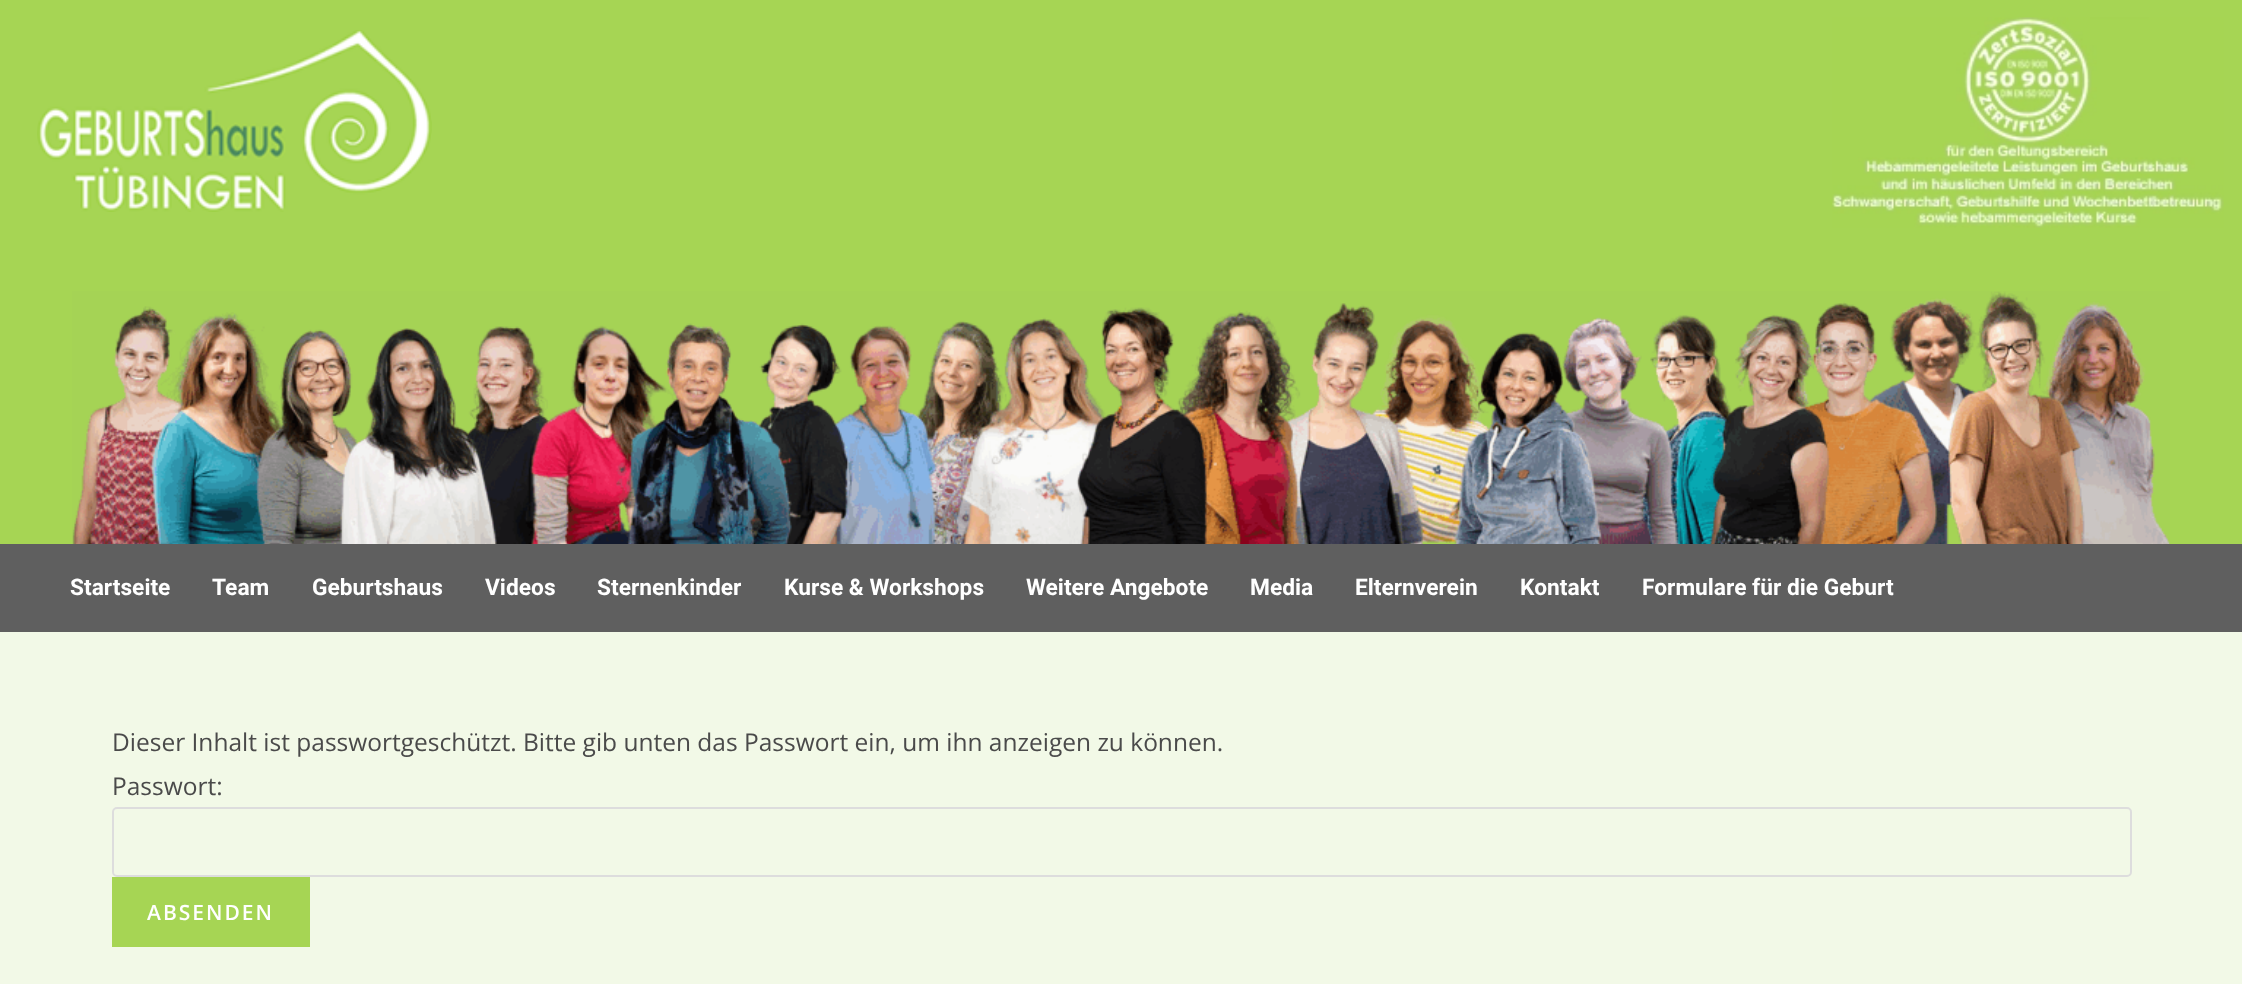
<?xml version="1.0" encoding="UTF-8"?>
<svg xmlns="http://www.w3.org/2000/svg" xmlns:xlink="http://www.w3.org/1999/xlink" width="2242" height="984">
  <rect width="100%" height="100%" fill="#f2f9e7" />
  <rect width="2242" height="544" fill="#a6d554" />
  <image x="37" y="30" width="395" height="182" xlink:href="image1.png" />
  <image x="1832" y="17" width="392" height="211" xlink:href="image2.png" />
  <image x="72" y="291" width="2098" height="253" xlink:href="image3.png" />
  <rect y="544" width="2242" height="88" fill="#5f5f5f" />
  <rect x="113" y="808" width="2018" height="68" rx="4" fill="none" stroke="#dddddd" stroke-width="2" />
  <rect x="112" y="877" width="198" height="70" fill="#a6d554" />
  <text x="70" y="595" style="font-family: Roboto; font-size: 22.75px; font-weight: bold; fill: #ffffff">Startseite</text>
  <text x="212" y="595" style="font-family: Roboto; font-size: 22.75px; font-weight: bold; fill: #ffffff">Team</text>
  <text x="312" y="595" style="font-family: Roboto; font-size: 22.75px; font-weight: bold; fill: #ffffff">Geburtshaus</text>
  <text x="485" y="595" style="font-family: Roboto; font-size: 22.75px; font-weight: bold; fill: #ffffff">Videos</text>
  <text x="597" y="595" style="font-family: Roboto; font-size: 22.75px; font-weight: bold; fill: #ffffff">Sternenkinder</text>
  <text x="784" y="595" style="font-family: Roboto; font-size: 22.75px; font-weight: bold; fill: #ffffff">Kurse &amp; Workshops</text>
  <text x="1026" y="595" style="font-family: Roboto; font-size: 22.75px; font-weight: bold; fill: #ffffff">Weitere Angebote</text>
  <text x="1250" y="595" style="font-family: Roboto; font-size: 22.75px; font-weight: bold; fill: #ffffff">Media</text>
  <text x="1355" y="595" style="font-family: Roboto; font-size: 22.75px; font-weight: bold; fill: #ffffff">Elternverein</text>
  <text x="1520" y="595" style="font-family: Roboto; font-size: 22.75px; font-weight: bold; fill: #ffffff">Kontakt</text>
  <text x="1642" y="595" style="font-family: Roboto; font-size: 22.75px; font-weight: bold; fill: #ffffff">Formulare für die Geburt</text>
  <text x="112" y="751" style="font-family: Open Sans; font-size: 24.5px; fill: #4a4a4a">Dieser Inhalt ist passwortgeschützt. Bitte gib unten das Passwort ein, um ihn anzeigen zu können.</text>
  <text x="112" y="795" style="font-family: Open Sans; font-size: 24.5px; fill: #4a4a4a">Passwort:</text>
  <text x="147" y="920" style="font-family: Open Sans; font-size: 21px; font-weight: 600; letter-spacing: 2px; fill: #ffffff">ABSENDEN</text>
</svg>
